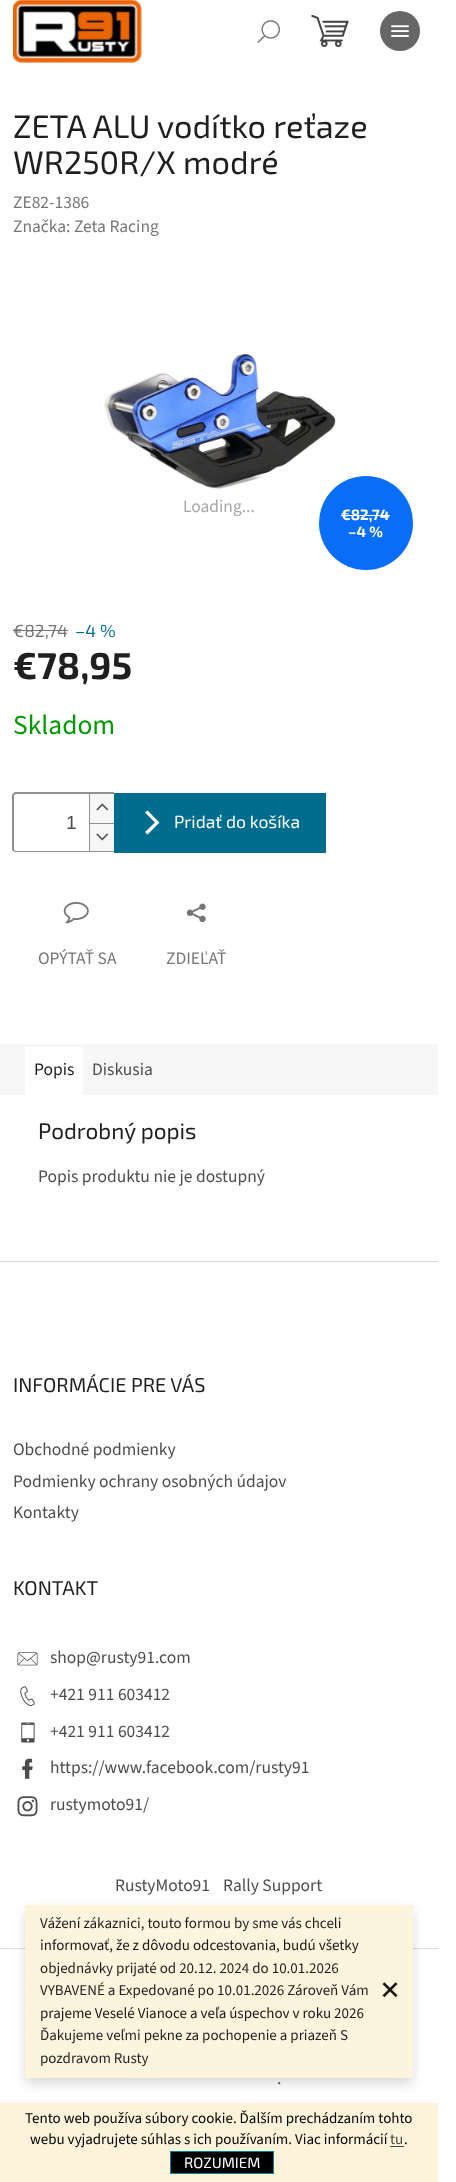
<?xml version="1.0" encoding="UTF-8"?>
<svg xmlns="http://www.w3.org/2000/svg" xmlns:xlink="http://www.w3.org/1999/xlink" width="456" height="2182">
  <defs>
    <clipPath id="clip1"><path d="M 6 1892 h 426 v 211 h -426 z m 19 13 h 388 v 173 h -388 z" clip-rule="evenodd" /></clipPath>
  </defs>
  <rect width="100%" height="100%" fill="#ffffff" />
  <image x="13" y="0" width="129" height="63" xlink:href="image1.png" />
  <image x="311" y="14" width="38" height="33" xlink:href="image2.png" />
  <image x="257" y="20" width="23" height="23" xlink:href="image3.png" />
  <circle cx="400" cy="31" r="20" fill="#666666" />
  <image x="391" y="25" width="18" height="12" xlink:href="image4.png" />
  <image x="104" y="354" width="232" height="136" xlink:href="image5.png" />
  <circle cx="366" cy="523" r="47" fill="#086df7" />
  <rect x="341" y="515" width="49" height="1" fill="#ffffff" />
  <rect x="13" y="630" width="55" height="1" fill="#767676" />
  <path d="M 16 792 h 98 v 60 h -98 c -2 0 -4 -1 -4 -3 v -53 c 0 -2 2 -4 4 -4 z m 0 2 h 98 v 57 h -98 c -1 0 -2 -1 -2 -2 v -53 c 0 -1 1 -2 2 -2 z" fill="#919191" fill-rule="evenodd" />
  <rect x="90" y="794" width="24" height="29" fill="#f6f6f6" />
  <rect x="89" y="794" width="1" height="29" fill="#919191" />
  <image x="96" y="803" width="13" height="8" xlink:href="image6.png" />
  <rect x="90" y="824" width="24" height="27" fill="#f6f6f6" />
  <rect x="89" y="823" width="25" height="1" fill="#919191" />
  <rect x="89" y="823" width="1" height="28" fill="#919191" />
  <image x="96" y="833" width="13" height="8" xlink:href="image7.png" />
  <rect x="114" y="793" width="212" height="60" fill="#006d8f" />
  <path d="M 147.5 834.5 l -2.5 -2.5 l 10 -9.5 l -10 -10 l 2.5 -2 l 12 12 z" fill="#ffffff" />
  <image x="63" y="902" width="26" height="22" xlink:href="image8.png" />
  <image x="186" y="903" width="20" height="20" xlink:href="image9.png" />
  <rect y="1044" width="438" height="51" fill="#f6f6f6" />
  <rect x="25" y="1047" width="58" height="48" fill="#ffffff" />
  <rect y="1261" width="438" height="1" fill="#dadada" />
  <image x="17" y="1652" width="21" height="14" xlink:href="image10.png" />
  <image x="20" y="1686" width="15" height="21" xlink:href="image11.png" />
  <image x="21" y="1722" width="14" height="21" xlink:href="image12.png" />
  <image x="22" y="1758" width="11" height="21" xlink:href="image13.png" />
  <image x="17" y="1796" width="21" height="21" xlink:href="image14.png" />
  <rect y="1948" width="438" height="1" fill="#dadada" />
  <g clip-path="url(#clip1)">
    <rect x="25" y="1911" width="388" height="173" fill="#000000" fill-opacity="0.14" filter="blur(6px)" />
  </g>
  <rect x="25" y="1905" width="388" height="173" fill="#fdf3da" fill-opacity="0.9" />
  <image x="382" y="1982" width="16" height="16" xlink:href="image15.png" />
  <rect y="2103" width="438" height="79" fill="#fdf3da" />
  <rect x="390" y="2146" width="14" height="1" fill="#444444" />
  <rect x="170.5" y="2151.5" width="103" height="22" fill="#000000" stroke="#008391" />
  <text x="13" y="138" style="font-family: 'Exo 2'; font-size: 32.5px; fill: #1f1f1f">ZETA ALU vodítko reťaze</text>
  <text x="13" y="174" style="font-family: 'Exo 2'; font-size: 32.5px; fill: #1f1f1f">WR250R/X modré</text>
  <text x="13" y="208" style="font-family: 'Source Sans 3'; font-size: 17.5px; fill: #767676">ZE82-1386</text>
  <text x="13" y="232" style="font-family: 'Source Sans 3'; font-size: 17.5px; fill: #767676">Značka: Zeta Racing</text>
  <text x="183" y="512" style="font-family: 'Source Sans 3'; font-size: 17.5px; fill: #a6a6a6">Loading...</text>
  <text x="341" y="520" style="font-family: 'Exo 2'; font-size: 15px; font-weight: bold; fill: #ffffff">€82,74</text>
  <text x="348" y="537" style="font-family: 'Exo 2'; font-size: 15px; font-weight: bold; fill: #ffffff">–4 %</text>
  <text x="13" y="637" style="font-family: 'Exo 2'; font-size: 17.5px; fill: #767676">€82,74</text>
  <text x="75" y="637" style="font-family: 'Exo 2'; font-size: 17.5px; fill: #006d8f">–4 %</text>
  <text x="13" y="679" style="font-family: 'Exo 2'; font-size: 37.5px; font-weight: bold; fill: #1f1f1f">€78,95</text>
  <text x="13" y="734" style="font-family: 'Source Sans 3'; font-size: 27.5px; fill: #009901">Skladom</text>
  <text x="66" y="829" style="font-family: Liberation Sans; font-size: 19px; fill: #4d4d4d">1</text>
  <text x="174" y="828" style="font-family: 'Exo 2'; font-size: 17.5px; fill: #ffffff">Pridať do košíka</text>
  <text x="38" y="964" style="font-family: 'Source Sans 3'; font-size: 17.5px; fill: #767676">OPÝTAŤ SA</text>
  <text x="166" y="964" style="font-family: 'Source Sans 3'; font-size: 17.5px; fill: #767676">ZDIEĽAŤ</text>
  <text x="34" y="1075" style="font-family: 'Source Sans 3'; font-size: 17.5px; fill: #1f1f1f">Popis</text>
  <text x="92" y="1075" style="font-family: 'Source Sans 3'; font-size: 17.5px; fill: #4d4d4d">Diskusia</text>
  <text x="38" y="1139" style="font-family: 'Exo 2'; font-size: 22.5px; fill: #1f1f1f">Podrobný popis</text>
  <text x="38" y="1182" style="font-family: 'Source Sans 3'; font-size: 17.5px; fill: #4d4d4d">Popis produktu nie je dostupný</text>
  <text x="13" y="1392" style="font-family: 'Exo 2'; font-size: 20px; fill: #1f1f1f">INFORMÁCIE PRE VÁS</text>
  <text x="13" y="1455" style="font-family: 'Source Sans 3'; font-size: 17.5px; fill: #4d4d4d">Obchodné podmienky</text>
  <text x="13" y="1487" style="font-family: 'Source Sans 3'; font-size: 17.5px; fill: #4d4d4d">Podmienky ochrany osobných údajov</text>
  <text x="13" y="1518" style="font-family: 'Source Sans 3'; font-size: 17.5px; fill: #4d4d4d">Kontakty</text>
  <text x="13" y="1595" style="font-family: 'Exo 2'; font-size: 20px; fill: #1f1f1f">KONTAKT</text>
  <text x="50" y="1663" style="font-family: 'Source Sans 3'; font-size: 17.5px; fill: #4d4d4d">shop@rusty91.com</text>
  <text x="50" y="1700" style="font-family: 'Source Sans 3'; font-size: 17.5px; fill: #4d4d4d">+421 911 603412</text>
  <text x="50" y="1737" style="font-family: 'Source Sans 3'; font-size: 17.5px; fill: #4d4d4d">+421 911 603412</text>
  <text x="50" y="1773" style="font-family: 'Source Sans 3'; font-size: 17.5px; fill: #4d4d4d">https://www.facebook.com/rusty91</text>
  <text x="50" y="1810" style="font-family: 'Source Sans 3'; font-size: 17.5px; fill: #4d4d4d">rustymoto91/</text>
  <text x="115" y="1891" style="font-family: 'Source Sans 3'; font-size: 17.5px; fill: #4d4d4d">RustyMoto91</text>
  <text x="223" y="1891" style="font-family: 'Source Sans 3'; font-size: 17.5px; fill: #4d4d4d">Rally Support</text>
  <text x="277" y="2084" style="font-family: 'Source Sans 3'; font-size: 17.5px; fill: #4d4d4d">.</text>
  <text x="40" y="1928" style="font-family: 'Source Sans 3'; font-size: 15px; fill: #1f1f1f">Vážení zákaznici, touto formou by sme vás chceli</text>
  <text x="40" y="1950" style="font-family: 'Source Sans 3'; font-size: 15px; fill: #191816">informovať, že z dôvodu odcestovania, budú všetky</text>
  <text x="40" y="1973" style="font-family: 'Source Sans 3'; font-size: 15px; fill: #1f1f1f">objednávky prijaté od 20.12. 2024 do 10.01.2026</text>
  <text x="40" y="1995" style="font-family: 'Source Sans 3'; font-size: 15px; fill: #1f1f1f">VYBAVENÉ a Expedované po 10.01.2026 Zároveň Vám</text>
  <text x="40" y="2018" style="font-family: 'Source Sans 3'; font-size: 15px; fill: #191816">prajeme Veselé Vianoce a veľa úspechov v roku 2026</text>
  <text x="40" y="2040" style="font-family: 'Source Sans 3'; font-size: 15px; fill: #1f1f1f">Ďakujeme veľmi pekne za pochopenie a priazeň S</text>
  <text x="40" y="2063" style="font-family: 'Source Sans 3'; font-size: 15px; fill: #1f1f1f">pozdravom Rusty</text>
  <text x="25" y="2123" style="font-family: 'Source Sans 3'; font-size: 15px; fill: #000000">Tento web používa súbory cookie. Ďalším prechádzaním tohto</text>
  <text x="30" y="2144" style="font-family: 'Source Sans 3'; font-size: 15px; fill: #000000">webu vyjadrujete súhlas s ich používaním. Viac informácií</text>
  <text x="390" y="2144" style="font-family: 'Source Sans 3'; font-size: 15px; fill: #444444">tu</text>
  <text x="404" y="2144" style="font-family: 'Source Sans 3'; font-size: 15px; fill: #000000">.</text>
  <text x="184" y="2168" style="font-family: 'Exo 2'; font-size: 15px; fill: #ffffff">ROZUMIEM</text>
</svg>
